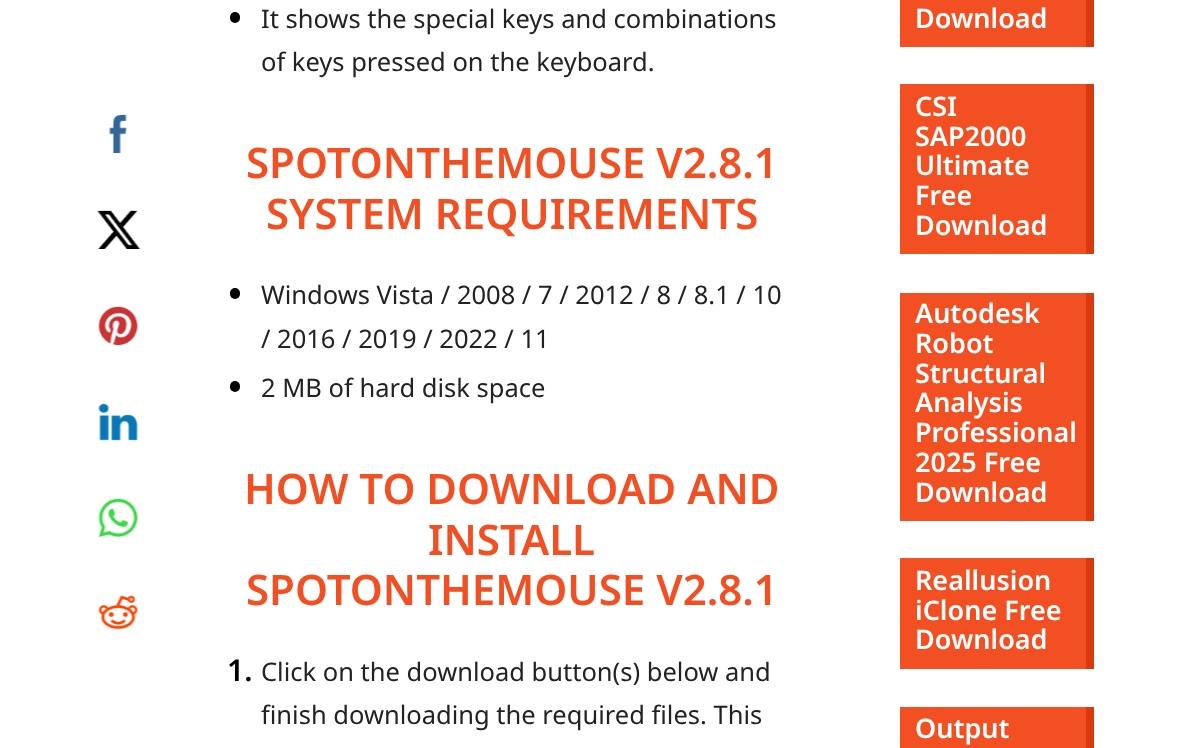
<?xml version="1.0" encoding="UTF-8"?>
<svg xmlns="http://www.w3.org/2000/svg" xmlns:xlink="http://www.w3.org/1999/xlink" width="1193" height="748">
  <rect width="100%" height="100%" fill="#ffffff" />
  <image x="109" y="114" width="19" height="39" xlink:href="image1.png" />
  <image x="97" y="210" width="44" height="39" xlink:href="image2.png" />
  <image x="98" y="306" width="40" height="39" xlink:href="image3.png" />
  <image x="98" y="403" width="40" height="38" xlink:href="image4.png" />
  <image x="98" y="498" width="40" height="39" xlink:href="image5.png" />
  <image x="98" y="595" width="40" height="35" xlink:href="image6.png" />
  <rect x="230" y="12" width="10" height="11" rx="5" fill="#000000" />
  <rect x="230" y="288" width="10" height="11" rx="5" fill="#000000" />
  <rect x="230" y="381" width="10" height="11" rx="5" fill="#000000" />
  <rect x="900" width="186" height="47" fill="#f25022" />
  <rect x="1086" width="8" height="47" fill="#d9390d" />
  <rect x="900" y="84" width="186" height="170" fill="#f25022" />
  <rect x="1086" y="84" width="8" height="170" fill="#d9390d" />
  <rect x="900" y="293" width="186" height="228" fill="#f25022" />
  <rect x="1086" y="293" width="8" height="228" fill="#d9390d" />
  <rect x="900" y="558" width="186" height="111" fill="#f25022" />
  <rect x="1086" y="558" width="8" height="111" fill="#d9390d" />
  <rect x="900" y="707" width="186" height="41" fill="#f25022" />
  <rect x="1086" y="707" width="8" height="41" fill="#d9390d" />
  <text x="261" y="28" style="font-family: Noto Sans; font-size: 25.5px; fill: #222222">It shows the special keys and combinations</text>
  <text x="261" y="71" style="font-family: Noto Sans; font-size: 25.5px; fill: #222222">of keys pressed on the keyboard.</text>
  <text x="246" y="178" style="font-family: Noto Sans; font-size: 42px; font-weight: 600; fill: #f25022">SPOTONTHEMOUSE V2.8.1</text>
  <text x="266" y="229" style="font-family: Noto Sans; font-size: 42px; font-weight: 600; fill: #f25022">SYSTEM REQUIREMENTS</text>
  <text x="261" y="304" style="font-family: Noto Sans; font-size: 25.5px; fill: #222222">Windows Vista / 2008 / 7 / 2012 / 8 / 8.1 / 10</text>
  <text x="261" y="348" style="font-family: Noto Sans; font-size: 25.5px; fill: #222222">/ 2016 / 2019 / 2022 / 11</text>
  <text x="261" y="397" style="font-family: Noto Sans; font-size: 25.5px; fill: #222222">2 MB of hard disk space</text>
  <text x="244" y="504" style="font-family: Noto Sans; font-size: 42px; font-weight: 600; fill: #f25022">HOW TO DOWNLOAD AND</text>
  <text x="428" y="555" style="font-family: Noto Sans; font-size: 42px; font-weight: 600; fill: #f25022">INSTALL</text>
  <text x="246" y="605" style="font-family: Noto Sans; font-size: 42px; font-weight: 600; fill: #f25022">SPOTONTHEMOUSE V2.8.1</text>
  <text x="227" y="681" style="font-family: Noto Sans; font-size: 30px; font-weight: 600; fill: #000000">1.</text>
  <text x="261" y="681" style="font-family: Noto Sans; font-size: 25.5px; fill: #222222">Click on the download button(s) below and</text>
  <text x="261" y="724" style="font-family: Noto Sans; font-size: 25.5px; fill: #222222">finish downloading the required files. This</text>
  <text x="915" y="28" style="font-family: Noto Sans; font-size: 27px; font-weight: 600; fill: #ffffff">Download</text>
  <text x="915" y="116" style="font-family: Noto Sans; font-size: 27px; font-weight: 600; fill: #ffffff">CSI</text>
  <text x="915" y="146" style="font-family: Noto Sans; font-size: 27px; font-weight: 600; fill: #ffffff">SAP2000</text>
  <text x="915" y="175" style="font-family: Noto Sans; font-size: 27px; font-weight: 600; fill: #ffffff">Ultimate</text>
  <text x="915" y="205" style="font-family: Noto Sans; font-size: 27px; font-weight: 600; fill: #ffffff">Free</text>
  <text x="915" y="235" style="font-family: Noto Sans; font-size: 27px; font-weight: 600; fill: #ffffff">Download</text>
  <text x="915" y="323" style="font-family: Noto Sans; font-size: 27px; font-weight: 600; fill: #ffffff">Autodesk</text>
  <text x="915" y="353" style="font-family: Noto Sans; font-size: 27px; font-weight: 600; fill: #ffffff">Robot</text>
  <text x="915" y="383" style="font-family: Noto Sans; font-size: 27px; font-weight: 600; fill: #ffffff">Structural</text>
  <text x="915" y="412" style="font-family: Noto Sans; font-size: 27px; font-weight: 600; fill: #ffffff">Analysis</text>
  <text x="915" y="442" style="font-family: Noto Sans; font-size: 27px; font-weight: 600; fill: #ffffff">Professional</text>
  <text x="915" y="472" style="font-family: Noto Sans; font-size: 27px; font-weight: 600; fill: #ffffff">2025 Free</text>
  <text x="915" y="502" style="font-family: Noto Sans; font-size: 27px; font-weight: 600; fill: #ffffff">Download</text>
  <text x="915" y="590" style="font-family: Noto Sans; font-size: 27px; font-weight: 600; fill: #ffffff">Reallusion</text>
  <text x="915" y="620" style="font-family: Noto Sans; font-size: 27px; font-weight: 600; fill: #ffffff">iClone Free</text>
  <text x="915" y="649" style="font-family: Noto Sans; font-size: 27px; font-weight: 600; fill: #ffffff">Download</text>
  <text x="915" y="738" style="font-family: Noto Sans; font-size: 27px; font-weight: 600; fill: #ffffff">Output</text>
</svg>
